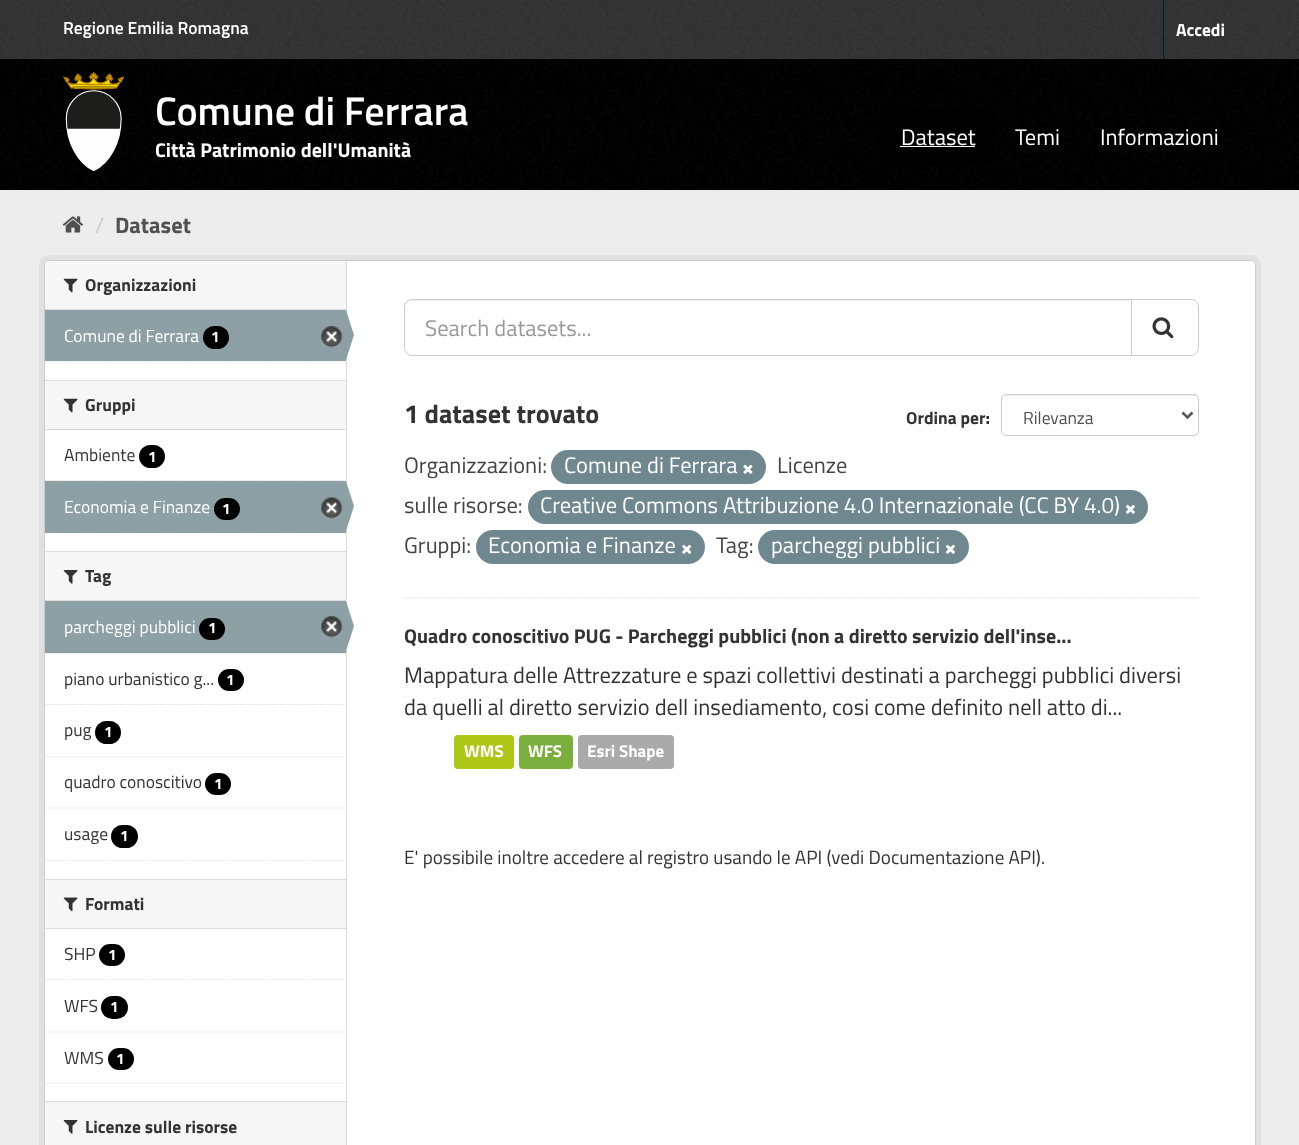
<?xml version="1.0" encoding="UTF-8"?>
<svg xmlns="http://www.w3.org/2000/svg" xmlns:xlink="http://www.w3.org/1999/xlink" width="1299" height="1145">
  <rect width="100%" height="100%" fill="#333333" />
  <image x="0" y="0" width="1299" height="58" xlink:href="image1.png" />
  <rect x="1163" width="1" height="59" fill="#00232e" />
  <rect y="59" width="1299" height="131" fill="#000000" />
  <image x="0" y="59" width="1299" height="131" xlink:href="image2.png" />
  <image x="63" y="72" width="62" height="99" xlink:href="image3.png" />
  <rect x="881" y="109" width="113" height="57" rx="5" fill="#000000" />
  <rect x="900" y="146" width="75" height="1" fill="#ffffff" />
  <rect y="190" width="1299" height="955" fill="#ededed" />
  <image x="62" y="216" width="21" height="17" xlink:href="image4.png" />
  <rect x="41.5" y="257.5" width="1217" height="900" rx="7.5" fill="none" stroke="#e1e1e1" stroke-width="5" />
  <rect x="44.5" y="260.5" width="1211" height="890" rx="4.5" fill="#ffffff" stroke="#cccccc" />
  <path d="M 49 261 h 297 v 49 h -301 v -45 c 0 -2 2 -4 4 -4 z" fill="#f6f6f6" />
  <rect x="45" y="309" width="301" height="1" fill="#dddddd" />
  <image x="63" y="278" width="15" height="15" xlink:href="image5.png" />
  <rect x="45" y="310" width="301" height="51" fill="#8ca0a6" />
  <rect x="203" y="326" width="26" height="23" rx="11.5" fill="#000000" />
  <image x="321" y="326" width="22" height="22" xlink:href="image6.png" />
  <rect x="346" y="261" width="1" height="884" fill="#dddddd" />
  <path d="M 346 360 v -50 l 8 25 z" fill="#8ca0a6" />
  <path d="M 45 362 h 301" fill="none" stroke="#dddddd" stroke-width="1.2" stroke-dasharray="1.25 1.25" />
  <rect x="45" y="381" width="301" height="48" fill="#f6f6f6" />
  <rect x="45" y="380" width="301" height="1" fill="#dddddd" />
  <rect x="45" y="429" width="301" height="1" fill="#dddddd" />
  <image x="63" y="398" width="15" height="15" xlink:href="image5.png" />
  <path d="M 45 480.5 h 301" fill="none" stroke="#dddddd" stroke-width="1.2" stroke-dasharray="1.25 1.25" />
  <rect x="139" y="445" width="26" height="23" rx="11.5" fill="#000000" />
  <path d="M 45 533 h 301" fill="none" stroke="#dddddd" stroke-width="1.2" stroke-dasharray="1.25 1.25" />
  <rect x="45" y="481" width="301" height="52" fill="#8ca0a6" />
  <rect x="214" y="498" width="26" height="22" rx="11" fill="#000000" />
  <image x="321" y="497" width="22" height="22" xlink:href="image7.png" />
  <path d="M 346 531 v -50 l 8 25 z" fill="#8ca0a6" />
  <rect x="45" y="552" width="301" height="48" fill="#f6f6f6" />
  <rect x="45" y="551" width="301" height="1" fill="#dddddd" />
  <rect x="45" y="600" width="301" height="1" fill="#dddddd" />
  <image x="63" y="570" width="15" height="14" xlink:href="image8.png" />
  <rect x="45" y="653" width="301" height="1" fill="#f6f6f6" />
  <path d="M 45 653 h 301" fill="none" stroke="#dddddd" stroke-width="1.2" stroke-dasharray="1.25 1.25" />
  <rect x="45" y="601" width="301" height="52" fill="#8ca0a6" />
  <rect x="199" y="618" width="26" height="22" rx="11" fill="#000000" />
  <image x="321" y="616" width="22" height="22" xlink:href="image6.png" />
  <path d="M 346 651 v -50 l 8 25 z" fill="#8ca0a6" />
  <path d="M 45 704.5 h 301" fill="none" stroke="#dddddd" stroke-width="1.2" stroke-dasharray="1.25 1.25" />
  <rect x="218" y="669" width="26" height="22" rx="11" fill="#000000" />
  <path d="M 45 757 h 301" fill="none" stroke="#dddddd" stroke-width="1.2" stroke-dasharray="1.25 1.25" />
  <rect x="95" y="721" width="26" height="23" rx="11.5" fill="#000000" />
  <path d="M 45 808 h 301" fill="none" stroke="#dddddd" stroke-width="1.2" stroke-dasharray="1.25 1.25" />
  <rect x="205" y="773" width="26" height="22" rx="11" fill="#000000" />
  <rect x="111" y="825" width="27" height="23" rx="11.5" fill="#000000" />
  <path d="M 45 860.5 h 301" fill="none" stroke="#dddddd" stroke-width="1.2" stroke-dasharray="1.25 1.25" />
  <rect x="45" y="880" width="301" height="48" fill="#f6f6f6" />
  <rect x="45" y="879" width="301" height="1" fill="#dddddd" />
  <rect x="45" y="928" width="301" height="1" fill="#dddddd" />
  <image x="63" y="897" width="15" height="15" xlink:href="image9.png" />
  <path d="M 45 979.5 h 301" fill="none" stroke="#dddddd" stroke-width="1.2" stroke-dasharray="1.25 1.25" />
  <rect x="99" y="944" width="26" height="22" rx="11" fill="#000000" />
  <path d="M 45 1032 h 301" fill="none" stroke="#dddddd" stroke-width="1.2" stroke-dasharray="1.25 1.25" />
  <rect x="101" y="996" width="27" height="23" rx="11.5" fill="#000000" />
  <rect x="108" y="1048" width="26" height="22" rx="11" fill="#000000" />
  <path d="M 45 1083 h 301" fill="none" stroke="#dddddd" stroke-width="1.2" stroke-dasharray="1.25 1.25" />
  <rect x="45" y="1102" width="301" height="43" fill="#f6f6f6" />
  <rect x="45" y="1101" width="301" height="1" fill="#dddddd" />
  <image x="63" y="1120" width="15" height="14" xlink:href="image8.png" />
  <path d="M 404 598 h 795" fill="none" stroke="#dddddd" stroke-width="1.2" stroke-dasharray="1.25 1.25" />
  <path d="M 411 301 h 720 v -1 h -720 c -3 0 -6 3 -6 6 v 2 c 0 -4 3 -7 6 -7 z" fill="#ececec" />
  <path d="M 412 299.5 h 720.5 v 56 h -720.5 c -4 0 -7.5 -3.5 -7.5 -7.5 v -41 c 0 -4 3.5 -7.5 7.5 -7.5 z" fill="none" stroke="#cccccc" />
  <path d="M 1131.5 299.5 h 59.5 c 4 0 7.5 3.5 7.5 7.5 v 41 c 0 4 -3.5 7.5 -7.5 7.5 h -59.5 z" fill="#ffffff" stroke="#cccccc" />
  <image x="1152" y="317" width="22" height="22" xlink:href="image10.png" />
  <path d="M 1006 396 h 188 c 2 0 4 2 4 4 v -1 c 0 -2 -2 -4 -4 -4 h -187 c -1 0 -3 1 -3 2 z" fill="#ececec" />
  <rect x="1001.5" y="394.5" width="197" height="41" rx="4.5" fill="none" stroke="#cccccc" />
  <path d="M 1182.5 412.5 l 5 5 l 5 -5" fill="none" stroke="#555555" stroke-width="2.5" />
  <rect x="551" y="450" width="215" height="34" rx="17" fill="#6f8890" />
  <image x="743" y="464" width="10" height="10" xlink:href="image11.png" />
  <rect x="528" y="490" width="620" height="34" rx="17" fill="#6f8890" />
  <image x="1125" y="504" width="10" height="10" xlink:href="image12.png" />
  <rect x="476" y="530" width="229" height="34" rx="17" fill="#6f8890" />
  <image x="682" y="544" width="10" height="10" xlink:href="image13.png" />
  <rect x="758" y="530" width="211" height="34" rx="17" fill="#6f8890" />
  <image x="945" y="544" width="10" height="10" xlink:href="image12.png" />
  <rect x="454" y="735" width="60" height="34" rx="4" fill="#adc717" />
  <rect x="519" y="735" width="54" height="34" rx="4" fill="#7aae3d" />
  <rect x="578" y="735" width="96" height="34" rx="4" fill="#aaaaaa" />
  <text x="63" y="34" style="font-family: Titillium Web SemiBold; font-size: 17.5px; font-weight: 600; fill: #ffffff">Regione Emilia Romagna</text>
  <text x="1176" y="36" style="font-family: Titillium Web; font-size: 17.5px; font-weight: bold; fill: #ffffff">Accedi</text>
  <text x="155" y="125" style="font-family: Titillium Web SemiBold; font-size: 40px; font-weight: 600; fill: #ffffff">Comune di Ferrara</text>
  <text x="155" y="157" style="font-family: Titillium Web; font-size: 20px; font-weight: bold; fill: #ffffff">Città Patrimonio dell'Umanità</text>
  <text x="901" y="145" style="font-family: Titillium Web; font-size: 22.5px; fill: #ffffff">Dataset</text>
  <text x="1015" y="145" style="font-family: Titillium Web; font-size: 22.5px; fill: #ffffff">Temi</text>
  <text x="1100" y="145" style="font-family: Titillium Web; font-size: 22.5px; fill: #ffffff">Informazioni</text>
  <text x="95" y="233" style="font-family: Titillium Web; font-size: 22.5px; fill: #cccccc">/</text>
  <text x="115" y="233" style="font-family: Titillium Web; font-size: 22.5px; font-weight: bold; fill: #505050">Dataset</text>
  <text x="85" y="291" style="font-family: Titillium Web; font-size: 17.5px; font-weight: bold; fill: #333333">Organizzazioni</text>
  <text x="64" y="342" style="font-family: Titillium Web; font-size: 17.5px; fill: #ffffff">Comune di Ferrara</text>
  <text x="211" y="342" style="font-family: Titillium Web; font-size: 15px; font-weight: bold; fill: #ffffff">1</text>
  <text x="85" y="411" style="font-family: Titillium Web; font-size: 17.5px; font-weight: bold; fill: #333333">Gruppi</text>
  <text x="64" y="461" style="font-family: Titillium Web; font-size: 17.5px; fill: #333333">Ambiente</text>
  <text x="148" y="462" style="font-family: Titillium Web; font-size: 15px; font-weight: bold; fill: #ffffff">1</text>
  <text x="64" y="513" style="font-family: Titillium Web; font-size: 17.5px; fill: #ffffff">Economia e Finanze</text>
  <text x="222" y="514" style="font-family: Titillium Web; font-size: 15px; font-weight: bold; fill: #ffffff">1</text>
  <text x="85" y="582" style="font-family: Titillium Web; font-size: 17.5px; font-weight: bold; fill: #333333">Tag</text>
  <text x="64" y="633" style="font-family: Titillium Web; font-size: 17.5px; fill: #ffffff">parcheggi pubblici</text>
  <text x="208" y="633" style="font-family: Titillium Web; font-size: 15px; font-weight: bold; fill: #ffffff">1</text>
  <text x="64" y="685" style="font-family: Titillium Web; font-size: 17.5px; fill: #333333">piano urbanistico g...</text>
  <text x="226" y="685" style="font-family: Titillium Web; font-size: 15px; font-weight: bold; fill: #ffffff">1</text>
  <text x="64" y="736" style="font-family: Titillium Web; font-size: 17.5px; fill: #333333">pug</text>
  <text x="104" y="737" style="font-family: Titillium Web; font-size: 15px; font-weight: bold; fill: #ffffff">1</text>
  <text x="64" y="788" style="font-family: Titillium Web; font-size: 17.5px; fill: #333333">quadro conoscitivo</text>
  <text x="214" y="789" style="font-family: Titillium Web; font-size: 15px; font-weight: bold; fill: #ffffff">1</text>
  <text x="64" y="840" style="font-family: Titillium Web; font-size: 17.5px; fill: #333333">usage</text>
  <text x="120" y="841" style="font-family: Titillium Web; font-size: 15px; font-weight: bold; fill: #ffffff">1</text>
  <text x="85" y="910" style="font-family: Titillium Web; font-size: 17.5px; font-weight: bold; fill: #333333">Formati</text>
  <text x="64" y="960" style="font-family: Titillium Web; font-size: 17.5px; fill: #333333">SHP</text>
  <text x="108" y="960" style="font-family: Titillium Web; font-size: 15px; font-weight: bold; fill: #ffffff">1</text>
  <text x="64" y="1012" style="font-family: Titillium Web; font-size: 17.5px; fill: #333333">WFS</text>
  <text x="110" y="1012" style="font-family: Titillium Web; font-size: 15px; font-weight: bold; fill: #ffffff">1</text>
  <text x="64" y="1064" style="font-family: Titillium Web; font-size: 17.5px; fill: #333333">WMS</text>
  <text x="116" y="1064" style="font-family: Titillium Web; font-size: 15px; font-weight: bold; fill: #ffffff">1</text>
  <text x="85" y="1133" style="font-family: Titillium Web; font-size: 17.5px; font-weight: bold; fill: #333333">Licenze sulle risorse</text>
  <text x="425" y="336" style="font-family: Titillium Web; font-size: 22.5px; fill: #999999">Search datasets...</text>
  <text x="404" y="423" style="font-family: Titillium Web; font-size: 26.25px; font-weight: bold; fill: #333333">1 dataset trovato</text>
  <text x="906" y="424" style="font-family: Titillium Web; font-size: 17.5px; font-weight: bold; fill: #333333">Ordina per:</text>
  <text x="1023" y="424" style="font-family: Titillium Web; font-size: 17.5px; fill: #505050">Rilevanza</text>
  <text x="404" y="473" style="font-family: Titillium Web; font-size: 22.5px; fill: #444444">Organizzazioni:</text>
  <text x="564" y="473" style="font-family: Titillium Web; font-size: 22.5px; fill: #ffffff">Comune di Ferrara</text>
  <text x="777" y="473" style="font-family: Titillium Web; font-size: 22.5px; fill: #444444">Licenze</text>
  <text x="404" y="513" style="font-family: Titillium Web; font-size: 22.5px; fill: #444444">sulle risorse:</text>
  <text x="540" y="513" style="font-family: Titillium Web; font-size: 22.5px; fill: #ffffff">Creative Commons Attribuzione 4.0 Internazionale (CC BY 4.0)</text>
  <text x="404" y="553" style="font-family: Titillium Web; font-size: 22.5px; fill: #444444">Gruppi:</text>
  <text x="488" y="553" style="font-family: Titillium Web; font-size: 22.5px; fill: #ffffff">Economia e Finanze</text>
  <text x="716" y="553" style="font-family: Titillium Web; font-size: 22.5px; fill: #444444">Tag:</text>
  <text x="771" y="553" style="font-family: Titillium Web; font-size: 22.5px; fill: #ffffff">parcheggi pubblici</text>
  <text x="404" y="643" style="font-family: Titillium Web; font-size: 20px; font-weight: bold; fill: #333333">Quadro conoscitivo PUG - Parcheggi pubblici (non a diretto servizio dell'inse...</text>
  <text x="404" y="683" style="font-family: Titillium Web; font-size: 22.5px; fill: #333333">Mappatura delle Attrezzature e spazi collettivi destinati a parcheggi pubblici diversi</text>
  <text x="404" y="715" style="font-family: Titillium Web; font-size: 22.5px; fill: #333333">da quelli al diretto servizio dell insediamento, cosi come definito nell atto di...</text>
  <text x="464" y="757" style="font-family: Titillium Web; font-size: 17px; font-weight: bold; fill: #ffffff">WMS</text>
  <text x="528" y="757" style="font-family: Titillium Web; font-size: 17px; font-weight: bold; fill: #ffffff">WFS</text>
  <text x="587" y="757" style="font-family: Titillium Web; font-size: 17px; font-weight: bold; fill: #ffffff">Esri Shape</text>
  <text x="404" y="864" style="font-family: Titillium Web; font-size: 19.1px; fill: #333333">E' possibile inoltre accedere al registro usando le API (vedi Documentazione API).</text>
</svg>
